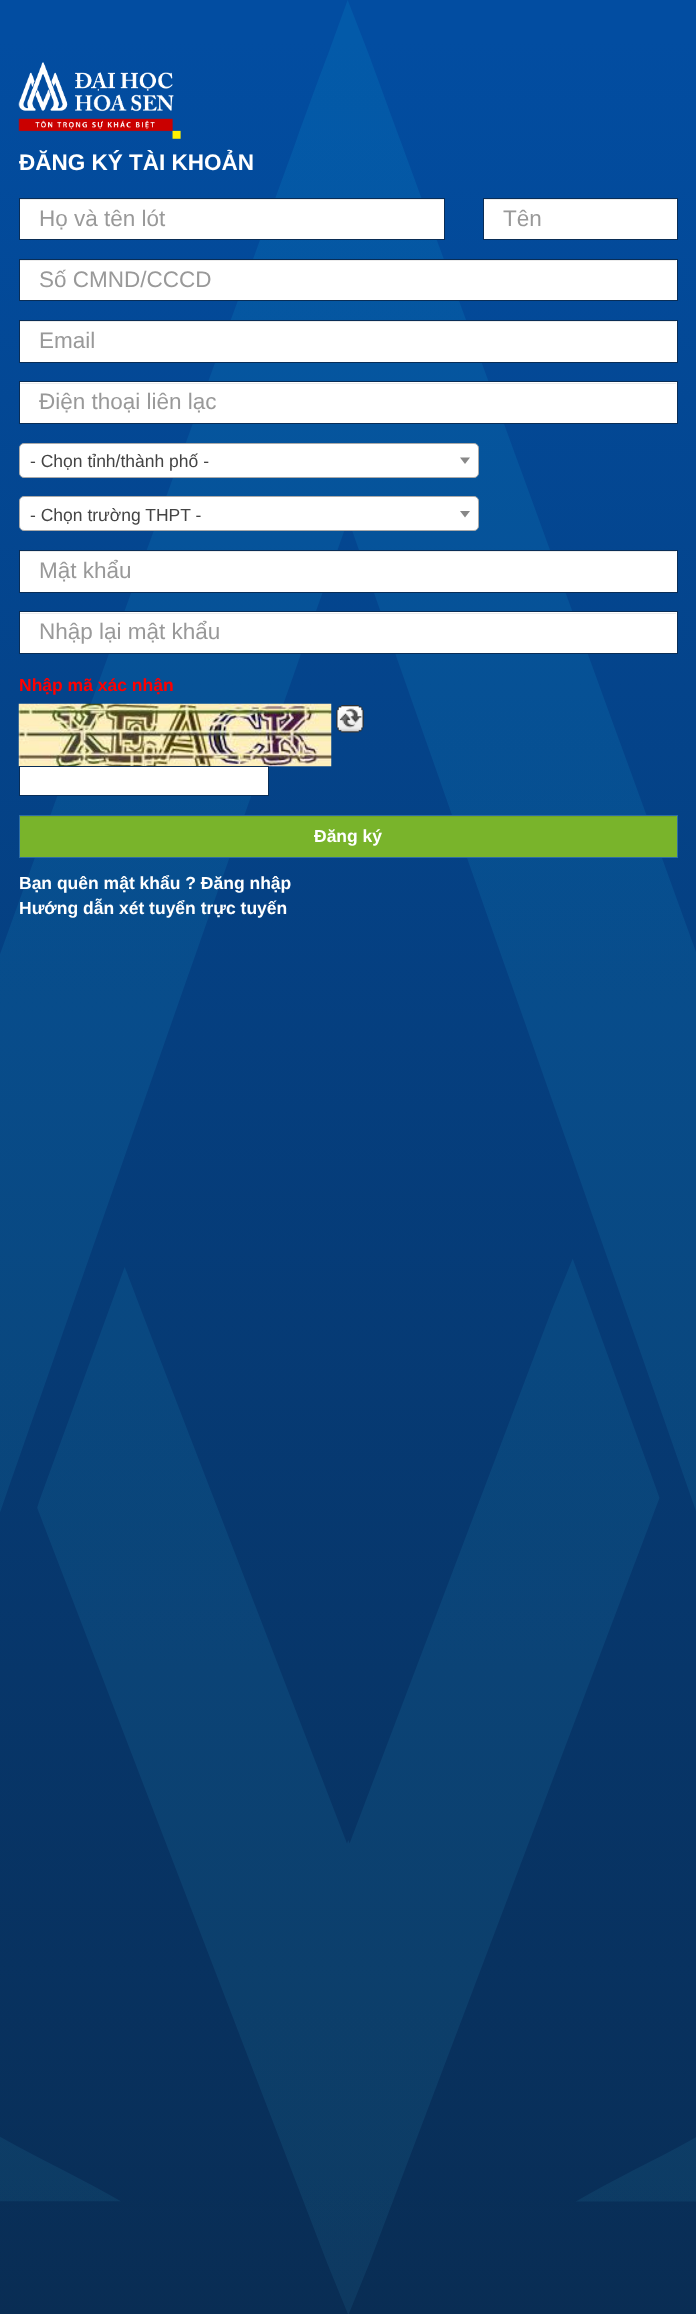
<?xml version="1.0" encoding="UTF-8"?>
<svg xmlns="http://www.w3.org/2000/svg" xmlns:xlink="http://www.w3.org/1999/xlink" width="696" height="2314">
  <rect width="100%" height="100%" fill="#ffffff" />
  <image x="0" y="0" width="696" height="2314" xlink:href="image1.png" />
  <image x="18" y="62" width="163" height="77" xlink:href="image2.png" />
  <rect x="20" y="200" width="424" height="39" fill="#ffffff" />
  <rect x="20" y="199" width="424" height="1" fill="#ececec" />
  <rect x="19.5" y="198.5" width="425" height="41" fill="none" stroke="#092d56" />
  <rect x="484" y="199" width="193" height="40" fill="#ffffff" />
  <rect x="484" y="199" width="192" height="1" fill="#ececec" />
  <rect x="483.5" y="198.5" width="194" height="41" fill="none" stroke="#092d56" />
  <rect x="20" y="260" width="657" height="40" fill="#ffffff" />
  <rect x="20" y="260" width="656" height="1" fill="#ececec" />
  <rect x="19.5" y="259.5" width="658" height="41" fill="none" stroke="#092d56" />
  <rect x="20" y="321" width="657" height="41" fill="#ffffff" />
  <rect x="20" y="321" width="656" height="1" fill="#ececec" />
  <rect x="19.5" y="320.5" width="658" height="42" fill="none" stroke="#092d56" />
  <rect x="20" y="382" width="657" height="41" fill="#ffffff" />
  <rect x="20" y="383" width="656" height="1" fill="#ececec" />
  <rect x="19.5" y="381.5" width="658" height="42" fill="none" stroke="#092d56" />
  <rect x="19.5" y="443.5" width="459" height="34" rx="4.5" fill="#ffffff" stroke="#aaaaaa" />
  <path d="M 460 457.5 h 10 l -5 6.5 z" fill="#888888" />
  <rect x="19.5" y="496.5" width="459" height="34" rx="4.5" fill="#ffffff" stroke="#aaaaaa" />
  <path d="M 460 511 h 10 l -5 6.5 z" fill="#888888" />
  <rect x="20" y="551" width="657" height="41" fill="#ffffff" />
  <rect x="20" y="551" width="656" height="1" fill="#ececec" />
  <rect x="19.5" y="550.5" width="658" height="42" fill="none" stroke="#092d56" />
  <rect x="20" y="612" width="657" height="41" fill="#ffffff" />
  <rect x="20" y="613" width="656" height="1" fill="#ececec" />
  <rect x="19.5" y="611.5" width="658" height="42" fill="none" stroke="#092d56" />
  <image x="18" y="703" width="314" height="64" xlink:href="image3.png" />
  <image x="336" y="705" width="28" height="28" xlink:href="image4.png" />
  <rect x="19.5" y="766.5" width="249" height="29" fill="#ffffff" stroke="#092d56" />
  <rect x="20" y="816" width="657" height="41" fill="#79b42b" />
  <rect x="20" y="816" width="656" height="1" fill="#70a728" />
  <rect x="19.5" y="815.5" width="658" height="42" fill="none" stroke="#2e6da4" />
  <text x="19" y="170" style="font-family: Liberation Sans; font-size: 22.5px; font-weight: bold; fill: #ffffff">ĐĂNG KÝ TÀI KHOẢN</text>
  <text x="39" y="226" style="font-family: Liberation Sans; font-size: 22.5px; fill: #999999">Họ và tên lót</text>
  <text x="503" y="226" style="font-family: Liberation Sans; font-size: 22.5px; fill: #999999">Tên</text>
  <text x="39" y="287" style="font-family: Liberation Sans; font-size: 22.5px; fill: #999999">Số CMND/CCCD</text>
  <text x="39" y="348" style="font-family: Liberation Sans; font-size: 22.5px; fill: #999999">Email</text>
  <text x="39" y="409" style="font-family: Liberation Sans; font-size: 22.5px; fill: #999999">Điện thoại liên lạc</text>
  <text x="30" y="467" style="font-family: Liberation Sans; font-size: 17.5px; fill: #444444">- Chọn tỉnh/thành phố -</text>
  <text x="30" y="521" style="font-family: Liberation Sans; font-size: 17.5px; fill: #444444">- Chọn trường THPT -</text>
  <text x="39" y="578" style="font-family: Liberation Sans; font-size: 22.5px; fill: #999999">Mật khẩu</text>
  <text x="39" y="639" style="font-family: Liberation Sans; font-size: 22.5px; fill: #999999">Nhập lại mật khẩu</text>
  <text x="19" y="691" style="font-family: Liberation Sans; font-size: 17.5px; font-weight: bold; fill: #ff0000">Nhập mã xác nhận</text>
  <text x="314" y="842" style="font-family: Liberation Sans; font-size: 17.5px; font-weight: bold; fill: #ffffff">Đăng ký</text>
  <text x="19" y="889" style="font-family: Liberation Sans; font-size: 17.5px; font-weight: bold; fill: #ffffff">Bạn quên mật khẩu ? Đăng nhập</text>
  <text x="19" y="914" style="font-family: Liberation Sans; font-size: 17.5px; font-weight: bold; fill: #ffffff">Hướng dẫn xét tuyển trực tuyến</text>
</svg>
